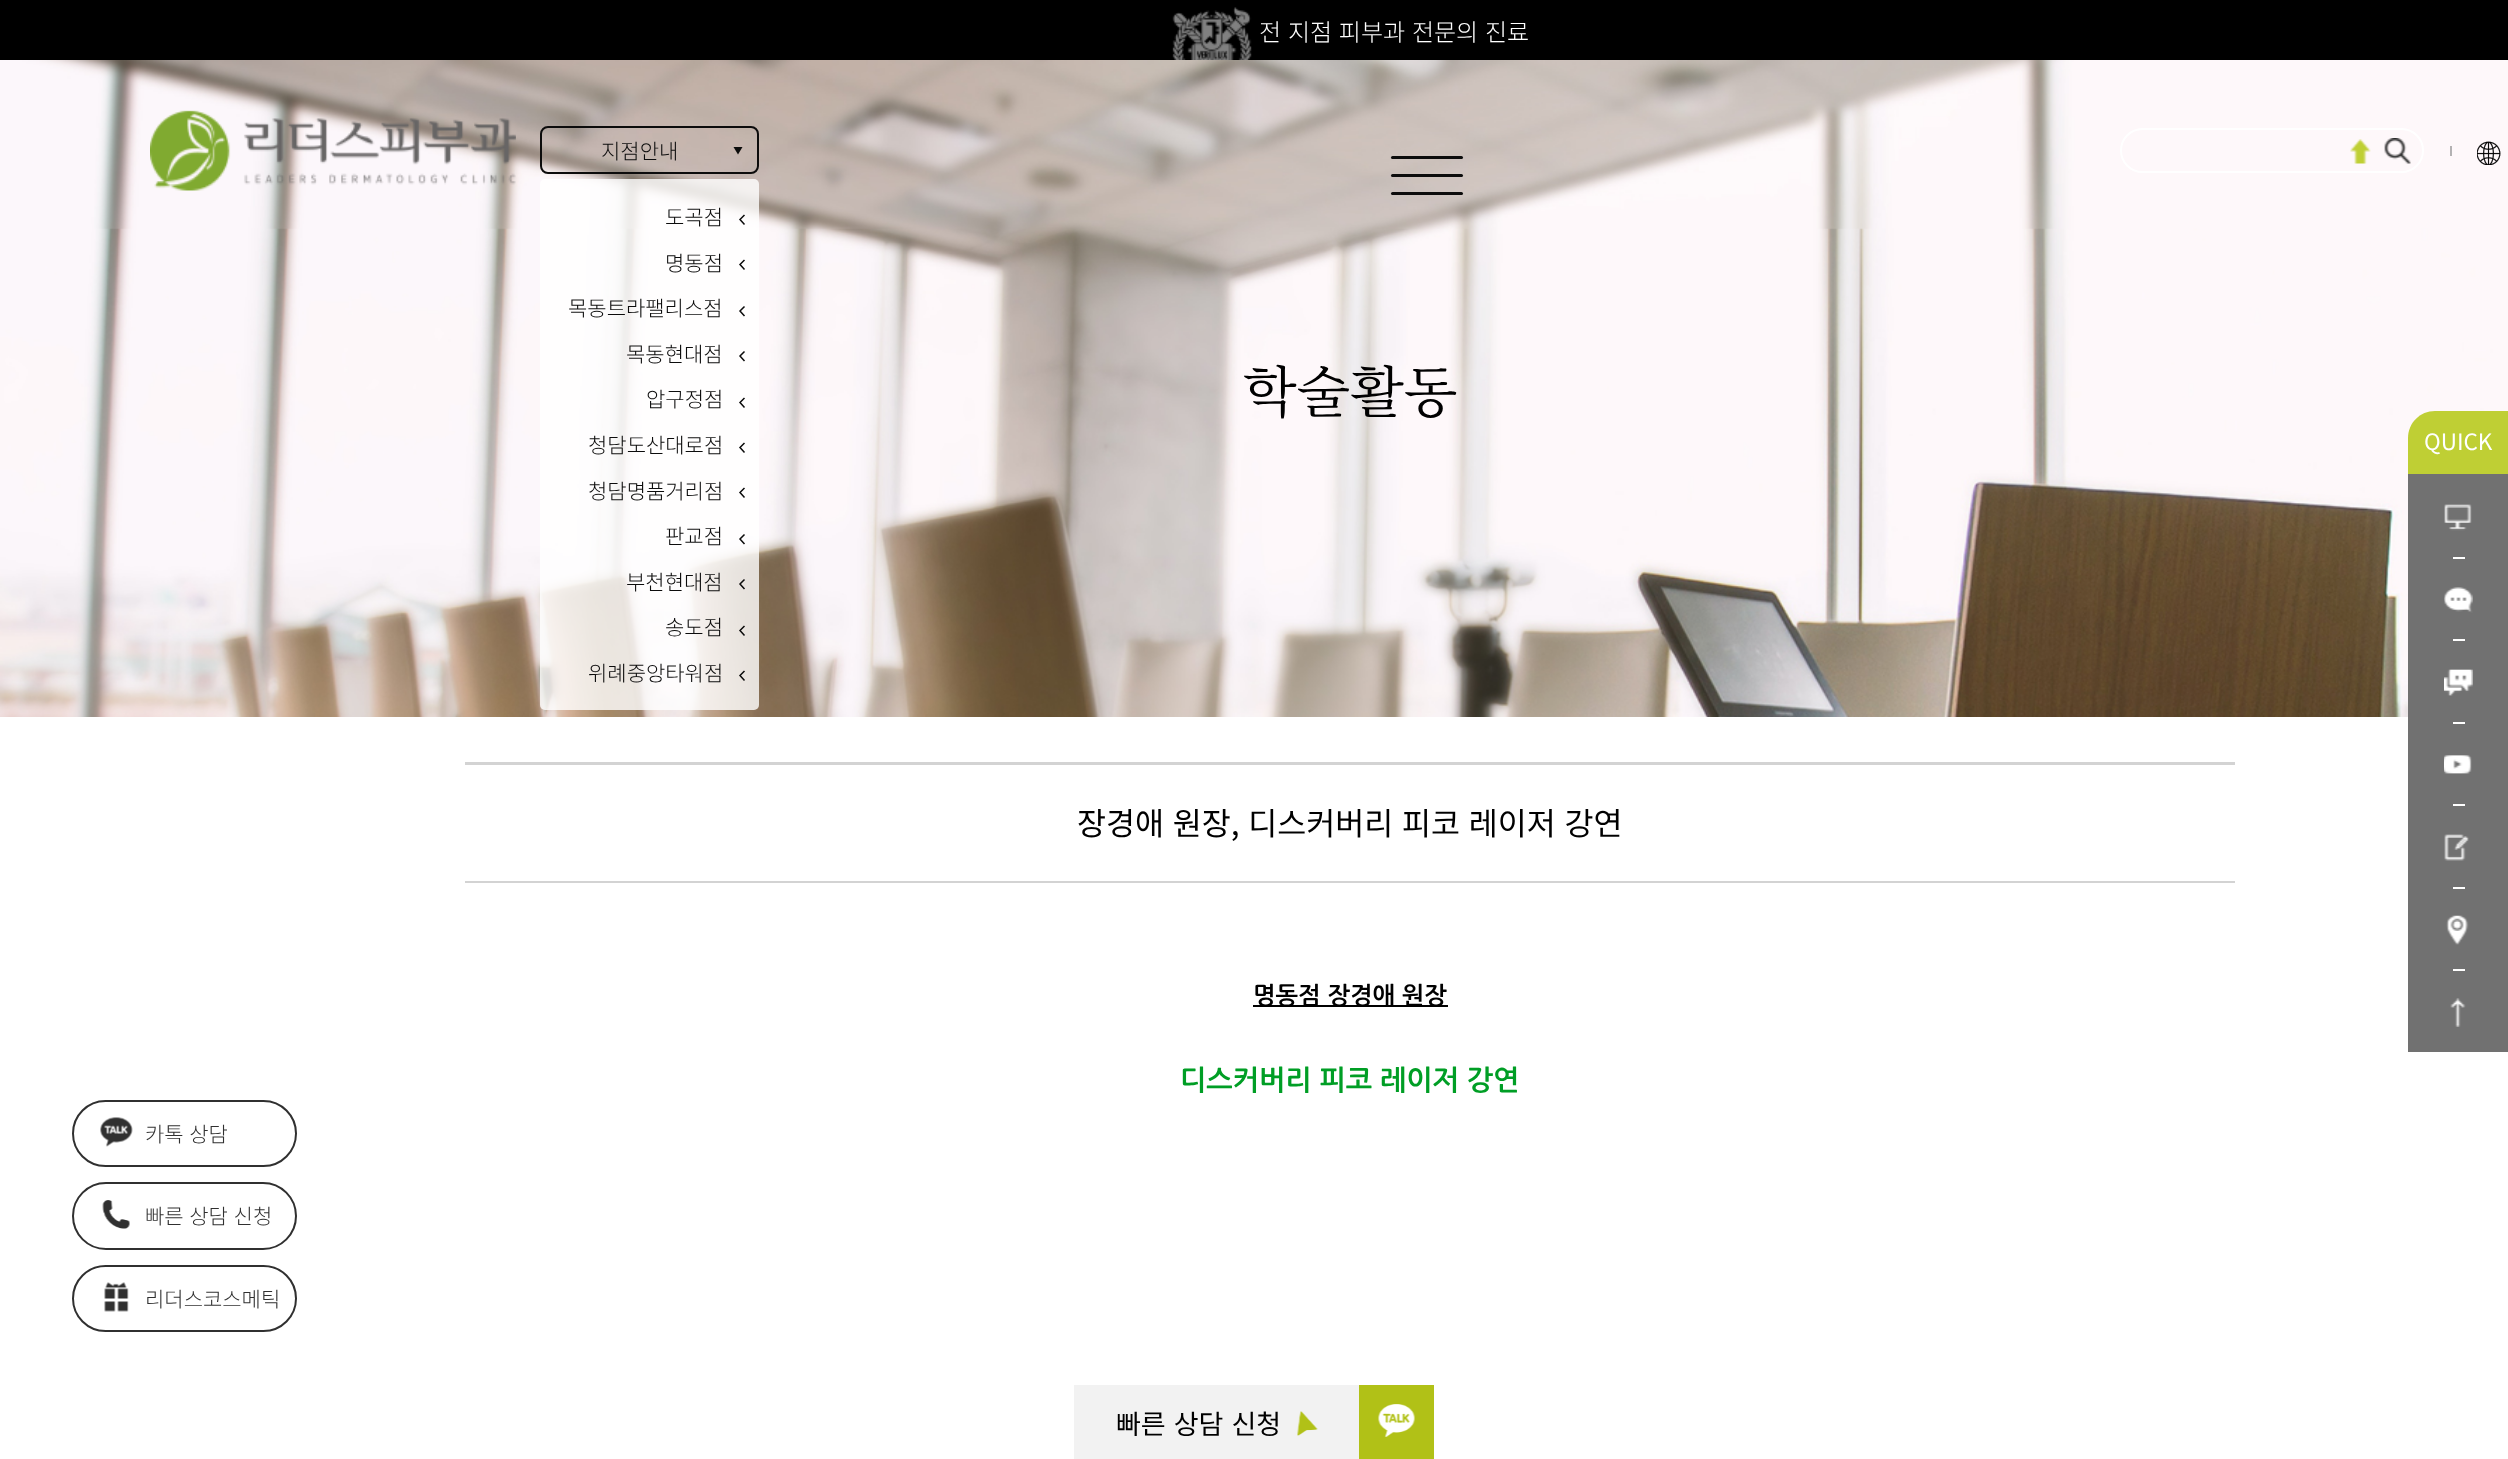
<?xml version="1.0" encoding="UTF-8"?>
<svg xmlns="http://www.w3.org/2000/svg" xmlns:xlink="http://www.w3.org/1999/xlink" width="2508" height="1459">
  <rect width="100%" height="100%" fill="#ffffff" />
  <rect width="2508" height="60" fill="#000000" />
  <image x="1172" y="7" width="80" height="53" xlink:href="image1.png" />
  <image x="0" y="60" width="2508" height="657" xlink:href="image6.png" />
  <image x="150" y="110" width="366" height="81" xlink:href="image2.png" />
  <rect x="541" y="127" width="217" height="46" rx="7" fill="none" stroke="#0c0c0c" stroke-width="2" />
  <path d="M 733.5 147 h 9 l -4.5 7.5 z" fill="#0c0c0c" />
  <rect x="540" y="179" width="219" height="531" rx="5" fill="#ffffff" fill-opacity="0.8" />
  <path d="M 744.5 215 l -4.5 4.5 l 4.5 5" fill="none" stroke="#0c0c0c" stroke-width="1.5" />
  <path d="M 744.5 260 l -4.5 4.5 l 4.5 5" fill="none" stroke="#0c0c0c" stroke-width="1.5" />
  <path d="M 744.5 306.5 l -4.5 4.5 l 4.5 5" fill="none" stroke="#0c0c0c" stroke-width="1.5" />
  <path d="M 744.5 351.5 l -4.5 4.5 l 4.5 5" fill="none" stroke="#0c0c0c" stroke-width="1.5" />
  <path d="M 744.5 398 l -4.5 4.5 l 4.5 5" fill="none" stroke="#0c0c0c" stroke-width="1.5" />
  <path d="M 744.5 443 l -4.5 4.5 l 4.5 5" fill="none" stroke="#0c0c0c" stroke-width="1.5" />
  <path d="M 744.5 488 l -4.5 4.5 l 4.5 5" fill="none" stroke="#0c0c0c" stroke-width="1.5" />
  <path d="M 744.5 534.5 l -4.5 4.5 l 4.5 5" fill="none" stroke="#0c0c0c" stroke-width="1.5" />
  <path d="M 744.5 579.5 l -4.5 4.5 l 4.5 5" fill="none" stroke="#0c0c0c" stroke-width="1.5" />
  <path d="M 744.5 626 l -4.5 4.5 l 4.5 5" fill="none" stroke="#0c0c0c" stroke-width="1.5" />
  <path d="M 744.5 671 l -4.5 4.5 l 4.5 5" fill="none" stroke="#0c0c0c" stroke-width="1.5" />
  <rect x="2121" y="129" width="302" height="43" rx="21.5" fill="none" stroke="#ffffff" stroke-width="2" />
  <image x="2350" y="139" width="21" height="25" xlink:href="image3.png" />
  <image x="2384" y="138" width="27" height="26" xlink:href="image4.png" />
  <rect x="2450" y="146" width="2" height="10" fill="#b4b2b3" />
  <image x="2477" y="141" width="24" height="24" xlink:href="image5.png" />
  <rect x="1391" y="156" width="72" height="3" rx="1.5" fill="#0c0c0c" />
  <rect x="1391" y="174" width="72" height="3" rx="1.5" fill="#0c0c0c" />
  <rect x="1391" y="192" width="72" height="3" rx="1.5" fill="#0c0c0c" />
  <rect x="465" y="762" width="1770" height="3" fill="#d3d3d3" />
  <rect x="465" y="881" width="1770" height="2" fill="#d3d3d3" />
  <rect x="1253" y="1005" width="195" height="2" fill="#000000" />
  <path d="M 2435 411 h 73 v 641 h -100 v -614 c 0 -15 12 -27 27 -27 z" fill="#bfcf34" />
  <rect x="2408" y="474" width="100" height="578" fill="#717171" />
  <image x="2444" y="504" width="28" height="27" xlink:href="image7.png" />
  <rect x="2453" y="557" width="12" height="2" fill="#ffffff" />
  <image x="2444" y="587" width="29" height="26" xlink:href="image8.png" />
  <rect x="2453" y="639" width="12" height="2" fill="#ffffff" />
  <image x="2444" y="669" width="29" height="27" xlink:href="image9.png" />
  <rect x="2453" y="722" width="12" height="2" fill="#ffffff" />
  <image x="2444" y="755" width="28" height="19" xlink:href="image10.png" />
  <rect x="2453" y="804" width="12" height="2" fill="#ffffff" />
  <image x="2444" y="834" width="25" height="27" xlink:href="image11.png" />
  <rect x="2453" y="887" width="12" height="2" fill="#ffffff" />
  <image x="2446" y="915" width="23" height="30" xlink:href="image12.png" />
  <rect x="2453" y="969" width="12" height="2" fill="#ffffff" />
  <image x="2450" y="998" width="16" height="29" xlink:href="image13.png" />
  <rect x="73" y="1101" width="223" height="65" rx="32.5" fill="none" stroke="#303030" stroke-width="2" />
  <image x="100" y="1117" width="33" height="30" xlink:href="image14.png" />
  <rect x="73" y="1183" width="223" height="66" rx="33" fill="none" stroke="#303030" stroke-width="2" />
  <image x="102" y="1200" width="28" height="29" xlink:href="image15.png" />
  <rect x="73" y="1266" width="223" height="65" rx="32.5" fill="none" stroke="#303030" stroke-width="2" />
  <image x="104" y="1282" width="25" height="30" xlink:href="image16.png" />
  <rect x="1074" y="1385" width="285" height="74" fill="#f2f2f2" />
  <image x="1297" y="1411" width="21" height="25" xlink:href="image17.png" />
  <rect x="1359" y="1385" width="75" height="74" fill="#b1c117" />
  <image x="1378" y="1404" width="37" height="33" xlink:href="image18.png" />
  <text x="1259" y="41" word-spacing="1.5" style="font-family: Noto Sans KR; font-size: 24px; font-weight: 300; fill: #ffffff">전 지점 피부과 전문의 진료</text>
  <text x="601" y="159" style="font-family: Noto Sans KR; font-size: 21px; font-weight: 300; fill: #0c0c0c">지점안내</text>
  <text x="665" y="225" style="font-family: Noto Sans KR; font-size: 21px; font-weight: 300; fill: #0c0c0c">도곡점</text>
  <text x="665" y="271" style="font-family: Noto Sans KR; font-size: 21px; font-weight: 300; fill: #0c0c0c">명동점</text>
  <text x="568" y="316" style="font-family: Noto Sans KR; font-size: 21px; font-weight: 300; fill: #0c0c0c">목동트라팰리스점</text>
  <text x="626" y="362" style="font-family: Noto Sans KR; font-size: 21px; font-weight: 300; fill: #0c0c0c">목동현대점</text>
  <text x="646" y="407" style="font-family: Noto Sans KR; font-size: 21px; font-weight: 300; fill: #0c0c0c">압구정점</text>
  <text x="588" y="453" style="font-family: Noto Sans KR; font-size: 21px; font-weight: 300; fill: #0c0c0c">청담도산대로점</text>
  <text x="588" y="499" style="font-family: Noto Sans KR; font-size: 21px; font-weight: 300; fill: #0c0c0c">청담명품거리점</text>
  <text x="665" y="544" style="font-family: Noto Sans KR; font-size: 21px; font-weight: 300; fill: #0c0c0c">판교점</text>
  <text x="626" y="590" style="font-family: Noto Sans KR; font-size: 21px; font-weight: 300; fill: #0c0c0c">부천현대점</text>
  <text x="665" y="635" style="font-family: Noto Sans KR; font-size: 21px; font-weight: 300; fill: #0c0c0c">송도점</text>
  <text x="588" y="681" style="font-family: Noto Sans KR; font-size: 21px; font-weight: 300; fill: #0c0c0c">위례중앙타워점</text>
  <text x="1243" y="412" style="font-family: Noto Serif KR; font-size: 55.5px; fill: #000000">학술활동</text>
  <text x="1077" y="835" word-spacing="1.75" style="font-family: Noto Sans KR; font-size: 31.5px; fill: #000000">장경애 원장, 디스커버리 피코 레이저 강연</text>
  <text x="1253" y="1004" style="font-family: NanumGothic; font-size: 24px; font-weight: bold; fill: #000000">명동점 장경애 원장</text>
  <text x="1180" y="1090" style="font-family: NanumGothic; font-size: 28px; font-weight: bold; fill: #009e25">디스커버리 피코 레이저 강연</text>
  <text x="2424" y="450" style="font-family: Noto Sans KR; font-size: 22.5px; fill: #ffffff">QUICK</text>
  <text x="145" y="1142" word-spacing="1" style="font-family: Noto Sans KR; font-size: 21px; font-weight: 300; fill: #303030">카톡 상담</text>
  <text x="145" y="1224" word-spacing="1" style="font-family: Noto Sans KR; font-size: 21px; font-weight: 300; fill: #303030">빠른 상담 신청</text>
  <text x="145" y="1307" style="font-family: Noto Sans KR; font-size: 21px; font-weight: 300; fill: #303030">리더스코스메틱</text>
  <text x="1116" y="1434" word-spacing="2" style="font-family: Noto Sans KR; font-size: 27px; fill: #000000">빠른 상담 신청</text>
</svg>
